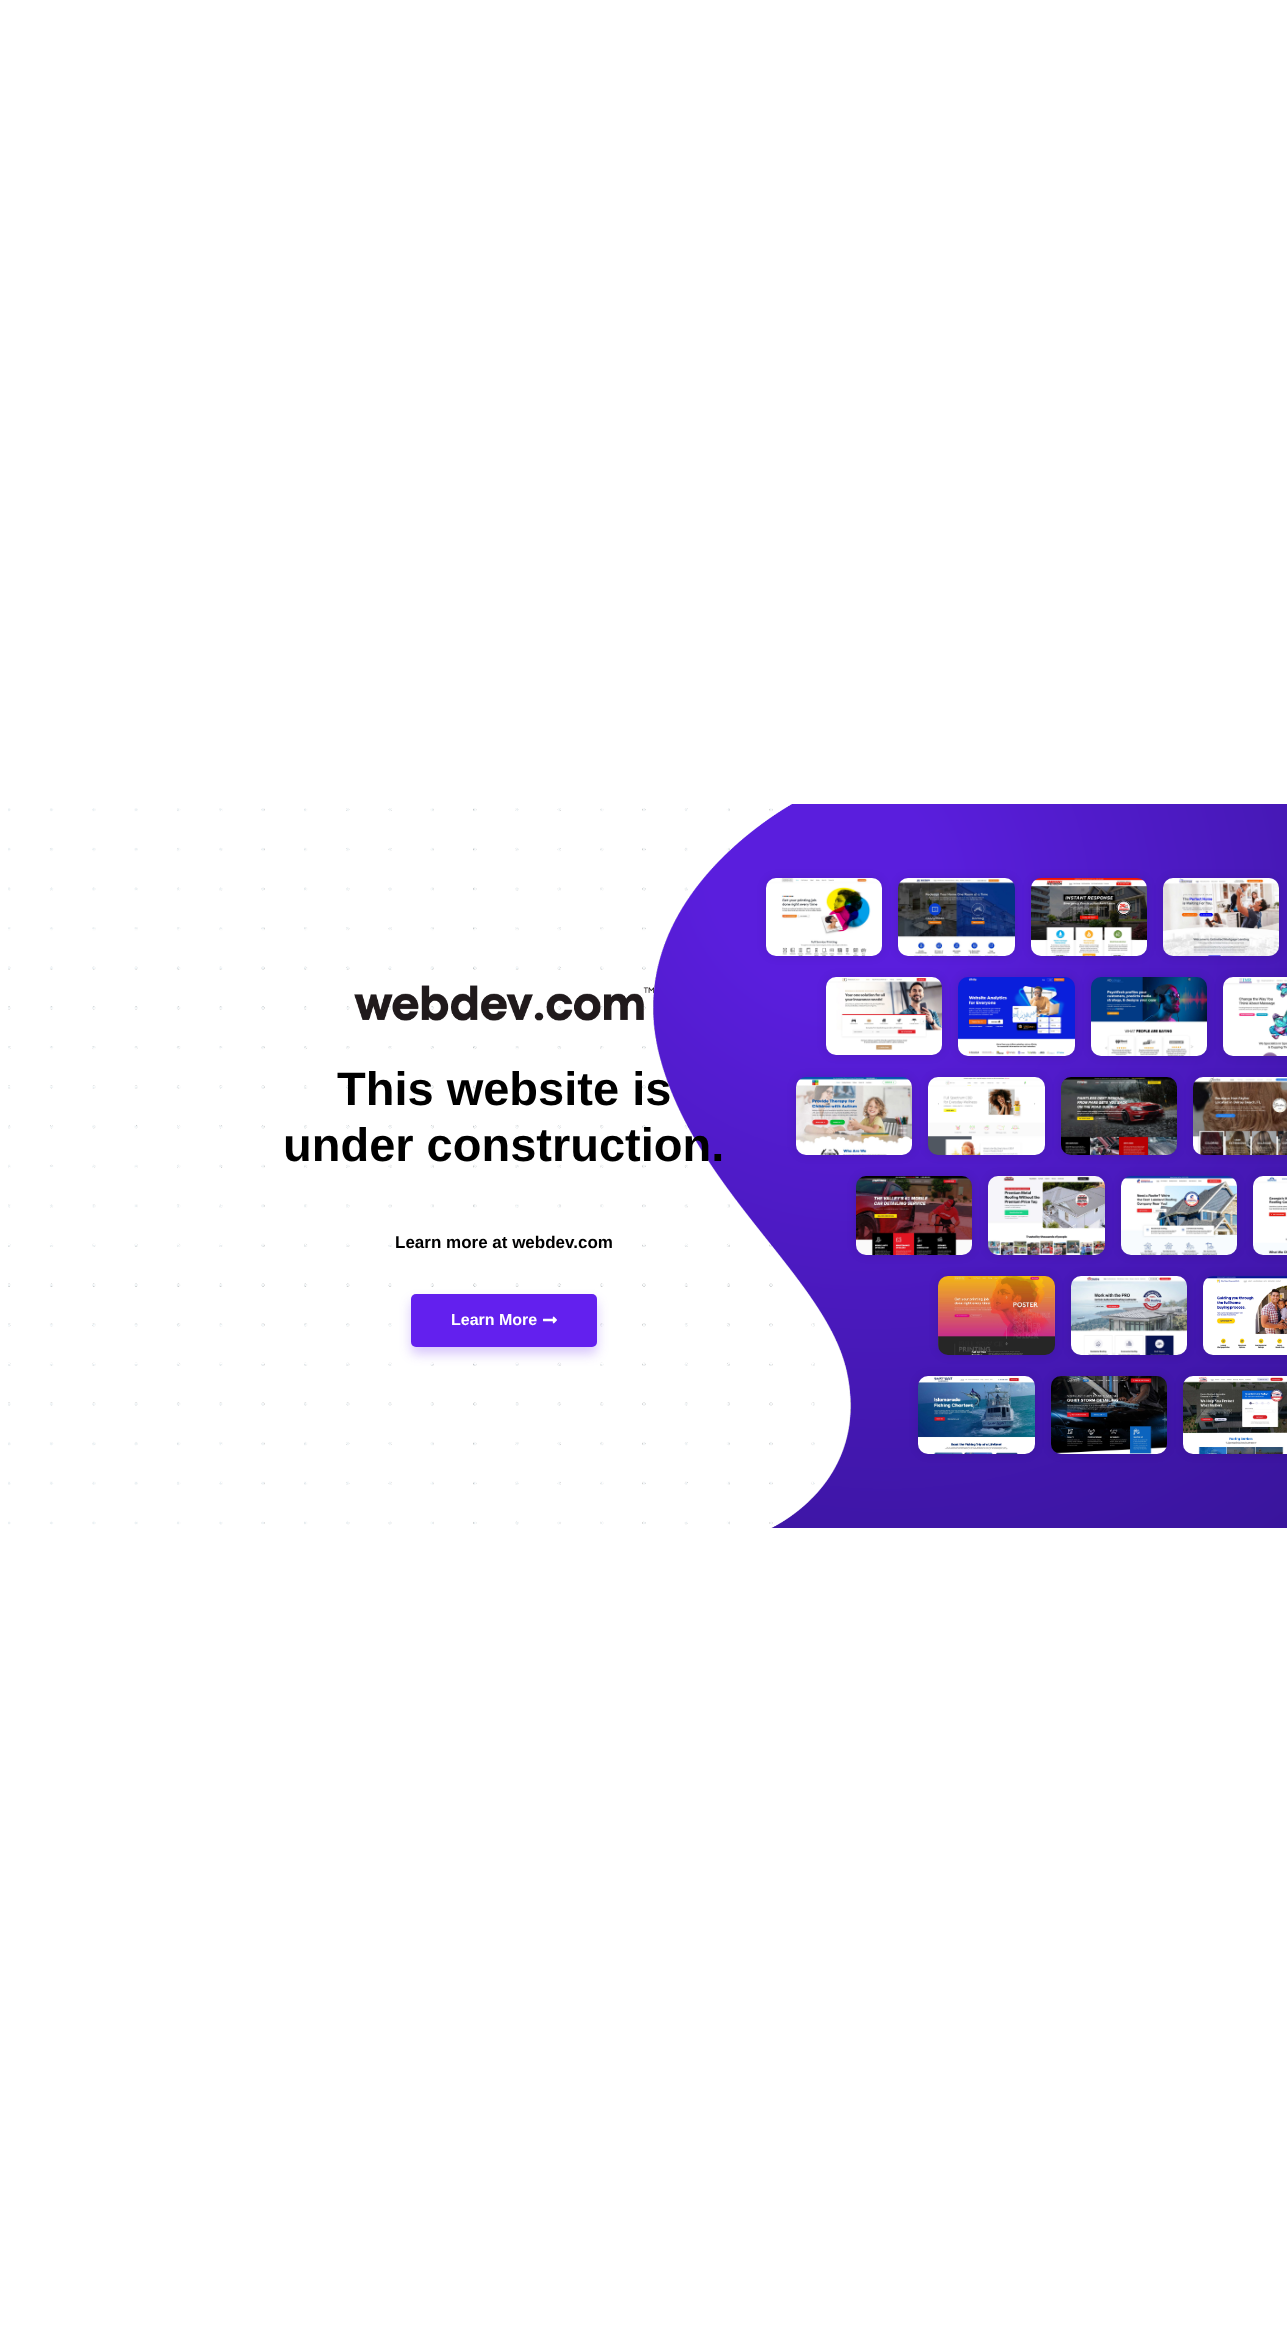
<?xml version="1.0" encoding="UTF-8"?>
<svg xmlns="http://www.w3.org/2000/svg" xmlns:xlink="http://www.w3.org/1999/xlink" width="1287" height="2332">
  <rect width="100%" height="100%" fill="#ffffff" />
  <image x="8" y="804" width="1279" height="724" xlink:href="image1.png" />
  <image x="354" y="985" width="300" height="36" xlink:href="image2.png" />
  <rect x="411" y="1301" width="186" height="53" rx="5" fill="#6320ee" fill-opacity="0.25" filter="blur(6px)" />
  <rect x="411" y="1294" width="186" height="53" rx="5" fill="#6320ee" />
  <image x="543" y="1316" width="14" height="8" xlink:href="image3.png" />
  <rect x="766" y="878" width="116" height="78" rx="10" fill="#000000" fill-opacity="0.1" filter="blur(5px)" />
  <image x="766" y="878" width="116" height="78" xlink:href="image4.png" />
  <rect x="898" y="878" width="117" height="78" rx="10" fill="#000000" fill-opacity="0.1" filter="blur(5px)" />
  <image x="898" y="878" width="117" height="78" xlink:href="image5.png" />
  <rect x="1031" y="878" width="116" height="78" rx="10" fill="#000000" fill-opacity="0.1" filter="blur(5px)" />
  <image x="1031" y="878" width="116" height="78" xlink:href="image6.png" />
  <rect x="1163" y="878" width="116" height="78" rx="10" fill="#000000" fill-opacity="0.1" filter="blur(5px)" />
  <image x="1163" y="878" width="116" height="78" xlink:href="image7.png" />
  <rect x="826" y="977" width="116" height="78" rx="10" fill="#000000" fill-opacity="0.1" filter="blur(5px)" />
  <image x="826" y="977" width="116" height="78" xlink:href="image8.png" />
  <rect x="958" y="977" width="117" height="79" rx="10" fill="#000000" fill-opacity="0.1" filter="blur(5px)" />
  <image x="958" y="977" width="117" height="79" xlink:href="image9.png" />
  <rect x="1091" y="977" width="116" height="79" rx="10" fill="#000000" fill-opacity="0.1" filter="blur(5px)" />
  <image x="1091" y="977" width="116" height="79" xlink:href="image10.png" />
  <rect x="1223" y="977" width="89" height="79" rx="10" fill="#000000" fill-opacity="0.1" filter="blur(5px)" />
  <image x="1223" y="977" width="64" height="79" xlink:href="image11.png" />
  <rect x="796" y="1077" width="116" height="78" rx="10" fill="#000000" fill-opacity="0.1" filter="blur(5px)" />
  <image x="796" y="1077" width="116" height="78" xlink:href="image12.png" />
  <rect x="928" y="1077" width="117" height="78" rx="10" fill="#000000" fill-opacity="0.1" filter="blur(5px)" />
  <image x="928" y="1077" width="117" height="78" xlink:href="image13.png" />
  <rect x="1061" y="1077" width="116" height="78" rx="10" fill="#000000" fill-opacity="0.1" filter="blur(5px)" />
  <image x="1061" y="1077" width="116" height="78" xlink:href="image14.png" />
  <rect x="1193" y="1077" width="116" height="78" rx="10" fill="#000000" fill-opacity="0.1" filter="blur(5px)" />
  <image x="1193" y="1077" width="94" height="78" xlink:href="image15.png" />
  <rect x="856" y="1176" width="116" height="79" rx="10" fill="#000000" fill-opacity="0.1" filter="blur(5px)" />
  <image x="856" y="1176" width="116" height="79" xlink:href="image16.png" />
  <rect x="988" y="1176" width="117" height="79" rx="10" fill="#000000" fill-opacity="0.1" filter="blur(5px)" />
  <image x="988" y="1176" width="117" height="79" xlink:href="image17.png" />
  <rect x="1121" y="1176" width="116" height="79" rx="10" fill="#000000" fill-opacity="0.1" filter="blur(5px)" />
  <image x="1121" y="1176" width="116" height="79" xlink:href="image18.png" />
  <rect x="1253" y="1176" width="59" height="79" rx="10" fill="#000000" fill-opacity="0.1" filter="blur(5px)" />
  <image x="1253" y="1176" width="34" height="79" xlink:href="image19.png" />
  <rect x="938" y="1276" width="117" height="79" rx="10" fill="#000000" fill-opacity="0.1" filter="blur(5px)" />
  <image x="938" y="1276" width="117" height="79" xlink:href="image20.png" />
  <rect x="1071" y="1276" width="116" height="79" rx="10" fill="#000000" fill-opacity="0.1" filter="blur(5px)" />
  <image x="1071" y="1276" width="116" height="79" xlink:href="image21.png" />
  <rect x="1203" y="1276" width="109" height="79" rx="10" fill="#000000" fill-opacity="0.1" filter="blur(5px)" />
  <image x="1203" y="1276" width="84" height="79" xlink:href="image22.png" />
  <rect x="918" y="1376" width="117" height="78" rx="10" fill="#000000" fill-opacity="0.1" filter="blur(5px)" />
  <image x="918" y="1376" width="117" height="78" xlink:href="image23.png" />
  <rect x="1051" y="1376" width="116" height="78" rx="10" fill="#000000" fill-opacity="0.1" filter="blur(5px)" />
  <image x="1051" y="1376" width="116" height="78" xlink:href="image24.png" />
  <rect x="1183" y="1376" width="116" height="78" rx="10" fill="#000000" fill-opacity="0.1" filter="blur(5px)" />
  <image x="1183" y="1376" width="104" height="78" xlink:href="image25.png" />
  <text x="337" y="1105" style="font-family: Liberation Sans; font-size: 47px; font-weight: bold; fill: #000000">This website is</text>
  <text x="283" y="1161" style="font-family: Liberation Sans; font-size: 47px; font-weight: bold; fill: #000000">under construction.</text>
  <text x="395" y="1248" style="font-family: Liberation Sans; font-size: 17px; font-weight: bold; fill: #000000">Learn more at webdev.com</text>
  <text x="451" y="1325" style="font-family: Liberation Sans; font-size: 16px; font-weight: bold; fill: #ffffff">Learn More</text>
</svg>
